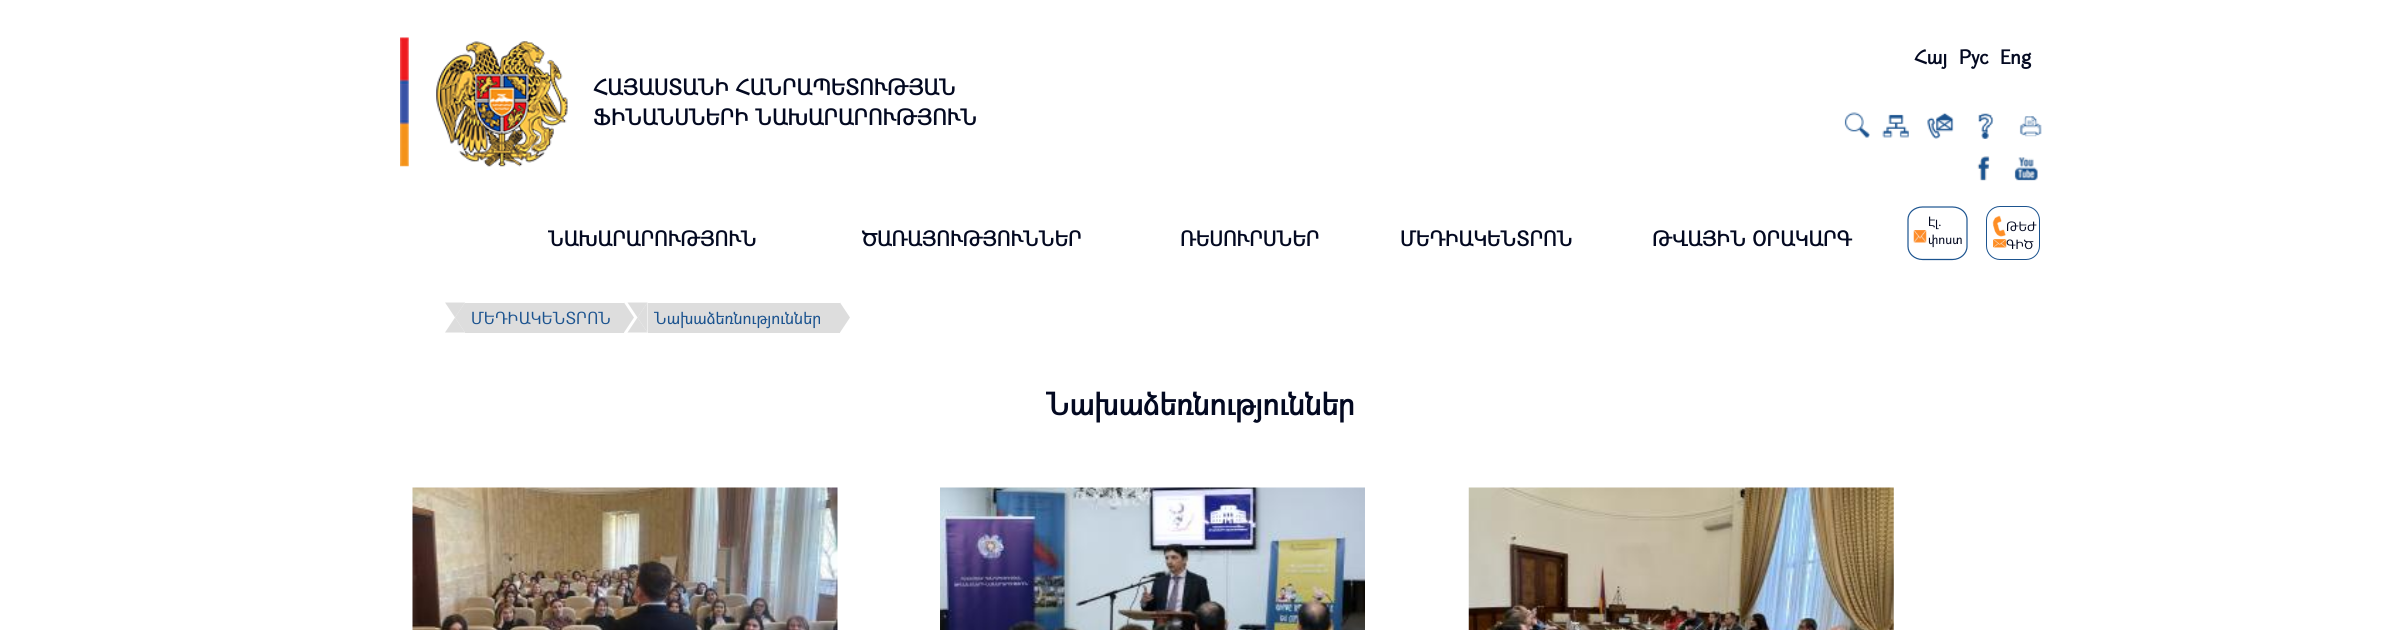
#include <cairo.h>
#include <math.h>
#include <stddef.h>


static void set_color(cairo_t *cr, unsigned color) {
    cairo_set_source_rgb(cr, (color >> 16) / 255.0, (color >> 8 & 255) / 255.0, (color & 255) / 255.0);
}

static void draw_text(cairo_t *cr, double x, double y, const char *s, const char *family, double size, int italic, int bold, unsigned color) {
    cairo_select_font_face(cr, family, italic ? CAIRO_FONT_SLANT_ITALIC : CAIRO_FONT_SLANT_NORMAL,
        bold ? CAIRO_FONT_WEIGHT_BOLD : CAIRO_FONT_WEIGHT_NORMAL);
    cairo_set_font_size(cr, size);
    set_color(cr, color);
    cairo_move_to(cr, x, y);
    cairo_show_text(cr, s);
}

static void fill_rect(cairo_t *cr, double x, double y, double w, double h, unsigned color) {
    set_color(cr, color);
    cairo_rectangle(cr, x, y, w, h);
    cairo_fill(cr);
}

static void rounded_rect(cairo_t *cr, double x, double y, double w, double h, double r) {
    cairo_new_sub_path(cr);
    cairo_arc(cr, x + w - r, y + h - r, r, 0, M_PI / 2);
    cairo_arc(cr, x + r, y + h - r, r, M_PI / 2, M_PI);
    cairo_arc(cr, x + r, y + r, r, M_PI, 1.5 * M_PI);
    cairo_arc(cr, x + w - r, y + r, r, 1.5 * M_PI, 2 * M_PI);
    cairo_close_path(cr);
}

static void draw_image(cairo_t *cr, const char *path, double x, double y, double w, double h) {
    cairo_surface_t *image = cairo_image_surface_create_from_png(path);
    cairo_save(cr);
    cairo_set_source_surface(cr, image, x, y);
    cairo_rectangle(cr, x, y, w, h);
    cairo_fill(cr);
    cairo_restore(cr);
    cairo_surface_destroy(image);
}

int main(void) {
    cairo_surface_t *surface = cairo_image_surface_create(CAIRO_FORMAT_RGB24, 2399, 630);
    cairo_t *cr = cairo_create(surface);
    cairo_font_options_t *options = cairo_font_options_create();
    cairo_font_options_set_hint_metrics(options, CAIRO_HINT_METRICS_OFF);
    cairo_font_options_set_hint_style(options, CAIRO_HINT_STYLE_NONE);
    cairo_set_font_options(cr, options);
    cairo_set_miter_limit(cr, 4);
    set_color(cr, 0xFFFFFF);
    cairo_paint(cr);
    draw_text(cr, 1914, 64, "Հայ", "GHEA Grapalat", 19, 0, 1, 0x030921);
    draw_text(cr, 1959, 64, "Рус", "GHEA Grapalat", 19, 0, 1, 0x030921);
    draw_text(cr, 2000, 64, "Eng", "GHEA Grapalat", 19, 0, 1, 0x030921);
    draw_image(cr, "assets/img1.png", 1844, 112, 26, 26);
    draw_image(cr, "assets/img2.png", 1882, 114, 27, 24);
    draw_image(cr, "assets/img3.png", 1927, 112, 27, 27);
    draw_image(cr, "assets/img4.png", 1978, 113, 16, 26);
    draw_image(cr, "assets/img5.png", 2019, 116, 23, 21);
    draw_image(cr, "assets/img6.png", 1977, 156, 13, 25);
    draw_image(cr, "assets/img7.png", 2014, 157, 24, 24);
    draw_image(cr, "assets/img8.png", 400, 37, 168, 130);
    draw_text(cr, 593, 95, "ՀԱՅԱՍՏԱՆԻ ՀԱՆՐԱՊԵՏՈՒԹՅԱՆ", "GHEA Grapalat", 21.25, 0, 1, 0x030921);
    draw_text(cr, 593, 125, "ՖԻՆԱՆՍՆԵՐԻ ՆԱԽԱՐԱՐՈՒԹՅՈՒՆ", "GHEA Grapalat", 21.25, 0, 1, 0x030921);
    draw_text(cr, 548, 246, "ՆԱԽԱՐԱՐՈՒԹՅՈՒՆ", "GHEA Grapalat", 20, 0, 1, 0x030921);
    draw_text(cr, 862, 246, "ԾԱՌԱՅՈՒԹՅՈՒՆՆԵՐ", "GHEA Grapalat", 20, 0, 1, 0x030921);
    draw_text(cr, 1180, 246, "ՌԵՍՈՒՐՍՆԵՐ", "GHEA Grapalat", 20, 0, 1, 0x030921);
    draw_text(cr, 1400, 246, "ՄԵԴԻԱԿԵՆՏՐՈՆ", "GHEA Grapalat", 20, 0, 1, 0x030921);
    draw_text(cr, 1652, 246, "ԹՎԱՅԻՆ ՕՐԱԿԱՐԳ", "GHEA Grapalat", 20, 0, 1, 0x030921);
    cairo_new_path(cr);
    cairo_move_to(cr, 1922.5, 207);
    cairo_line_to(cr, 1952.5, 207);
    cairo_curve_to(cr, 1960.5, 207, 1967, 212.5, 1967, 219.5);
    cairo_line_to(cr, 1967, 246.5);
    cairo_curve_to(cr, 1967, 253.5, 1960.5, 259.5, 1952.5, 259.5);
    cairo_line_to(cr, 1922.5, 259.5);
    cairo_curve_to(cr, 1914.5, 259.5, 1908, 253.5, 1908, 246.5);
    cairo_line_to(cr, 1908, 219.5);
    cairo_curve_to(cr, 1908, 212.5, 1914.5, 207, 1922.5, 207);
    cairo_close_path(cr);
    set_color(cr, 0x1B538F);
    cairo_set_line_width(cr, 1.2);
    cairo_stroke(cr);
    draw_image(cr, "assets/img9.png", 1913, 230, 14, 13);
    draw_text(cr, 1928, 226, "Էլ.", "GHEA Grapalat", 12.5, 0, 0, 0x030921);
    draw_text(cr, 1928, 244, "փոստ", "GHEA Grapalat", 12.5, 0, 0, 0x030921);
    rounded_rect(cr, 1986.5, 206.5, 53, 53, 13.5);
    set_color(cr, 0x1B538F);
    cairo_set_line_width(cr, 1);
    cairo_stroke(cr);
    draw_image(cr, "assets/img10.png", 1992, 215, 15, 33);
    draw_text(cr, 2006, 231, "ԹԵԺ", "GHEA Grapalat", 12.5, 0, 0, 0x030921);
    draw_text(cr, 2006, 249, "ԳԻԾ", "GHEA Grapalat", 12.5, 0, 0, 0x030921);
    fill_rect(cr, 465, 303, 159, 30, 0xDDDDDD);
    cairo_new_path(cr);
    cairo_move_to(cr, 445, 302.5);
    cairo_line_to(cr, 465, 302.5);
    cairo_line_to(cr, 455, 317.5);
    cairo_close_path(cr);
    cairo_fill(cr);
    cairo_set_source_rgba(cr, 0.831, 0.831, 0.831, 0.8);
    cairo_new_path(cr);
    cairo_move_to(cr, 465, 302.5);
    cairo_line_to(cr, 465, 332.5);
    cairo_line_to(cr, 455, 317.5);
    cairo_close_path(cr);
    cairo_fill(cr);
    cairo_new_path(cr);
    cairo_move_to(cr, 465, 332.5);
    cairo_line_to(cr, 445, 332.5);
    cairo_line_to(cr, 455, 317.5);
    cairo_close_path(cr);
    cairo_fill(cr);
    draw_text(cr, 471, 324, "ՄԵԴԻԱԿԵՆՏՐՈՆ", "GHEA Grapalat", 16.25, 0, 0, 0x1B538F);
    set_color(cr, 0xDDDDDD);
    cairo_new_path(cr);
    cairo_move_to(cr, 624, 332.5);
    cairo_line_to(cr, 624, 302.5);
    cairo_line_to(cr, 634, 317.5);
    cairo_close_path(cr);
    cairo_fill(cr);
    fill_rect(cr, 648, 303, 192, 30, 0xDDDDDD);
    cairo_new_path(cr);
    cairo_move_to(cr, 627.5, 302.5);
    cairo_line_to(cr, 647.5, 302.5);
    cairo_line_to(cr, 637.5, 317.5);
    cairo_close_path(cr);
    cairo_fill(cr);
    cairo_set_source_rgba(cr, 0.831, 0.831, 0.831, 0.8);
    cairo_new_path(cr);
    cairo_move_to(cr, 647.5, 302.5);
    cairo_line_to(cr, 647.5, 332.5);
    cairo_line_to(cr, 637.5, 317.5);
    cairo_close_path(cr);
    cairo_fill(cr);
    cairo_new_path(cr);
    cairo_move_to(cr, 647.5, 332.5);
    cairo_line_to(cr, 627.5, 332.5);
    cairo_line_to(cr, 637.5, 317.5);
    cairo_close_path(cr);
    cairo_fill(cr);
    draw_text(cr, 654, 324, "Նախաձեռնություններ", "GHEA Grapalat", 16.25, 0, 0, 0x1B538F);
    set_color(cr, 0xDDDDDD);
    cairo_new_path(cr);
    cairo_move_to(cr, 840, 332.5);
    cairo_line_to(cr, 840, 302.5);
    cairo_line_to(cr, 850, 317.5);
    cairo_close_path(cr);
    cairo_fill(cr);
    draw_text(cr, 1046, 415, "Նախաձեռնություններ", "GHEA Grapalat", 30, 0, 1, 0x030921);
    draw_image(cr, "assets/img11.png", 412, 487, 426, 143);
    draw_image(cr, "assets/img12.png", 940, 487, 425, 143);
    draw_image(cr, "assets/img13.png", 1468, 487, 426, 143);
    cairo_surface_write_to_png(surface, "output.png");
    cairo_font_options_destroy(options);
    cairo_destroy(cr);
    cairo_surface_destroy(surface);
    return 0;
}
